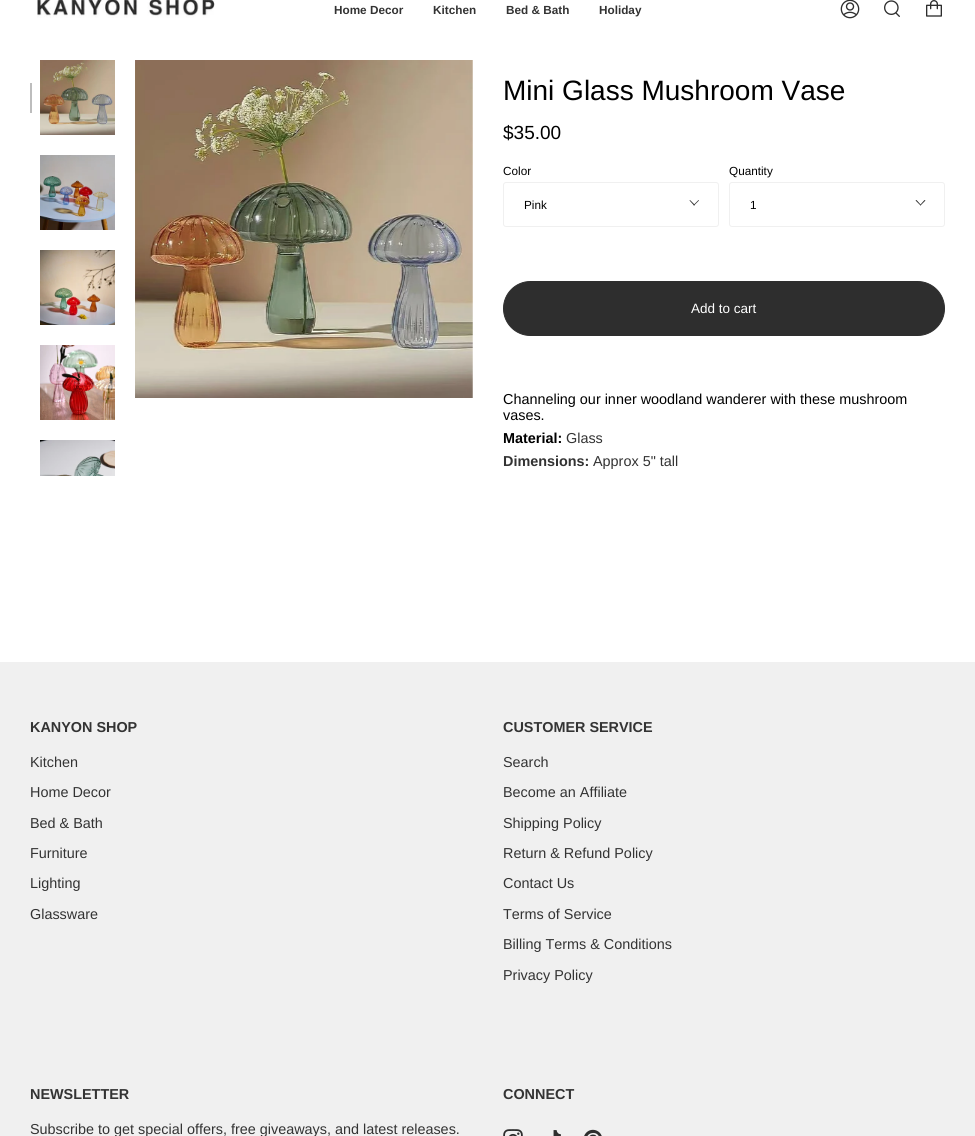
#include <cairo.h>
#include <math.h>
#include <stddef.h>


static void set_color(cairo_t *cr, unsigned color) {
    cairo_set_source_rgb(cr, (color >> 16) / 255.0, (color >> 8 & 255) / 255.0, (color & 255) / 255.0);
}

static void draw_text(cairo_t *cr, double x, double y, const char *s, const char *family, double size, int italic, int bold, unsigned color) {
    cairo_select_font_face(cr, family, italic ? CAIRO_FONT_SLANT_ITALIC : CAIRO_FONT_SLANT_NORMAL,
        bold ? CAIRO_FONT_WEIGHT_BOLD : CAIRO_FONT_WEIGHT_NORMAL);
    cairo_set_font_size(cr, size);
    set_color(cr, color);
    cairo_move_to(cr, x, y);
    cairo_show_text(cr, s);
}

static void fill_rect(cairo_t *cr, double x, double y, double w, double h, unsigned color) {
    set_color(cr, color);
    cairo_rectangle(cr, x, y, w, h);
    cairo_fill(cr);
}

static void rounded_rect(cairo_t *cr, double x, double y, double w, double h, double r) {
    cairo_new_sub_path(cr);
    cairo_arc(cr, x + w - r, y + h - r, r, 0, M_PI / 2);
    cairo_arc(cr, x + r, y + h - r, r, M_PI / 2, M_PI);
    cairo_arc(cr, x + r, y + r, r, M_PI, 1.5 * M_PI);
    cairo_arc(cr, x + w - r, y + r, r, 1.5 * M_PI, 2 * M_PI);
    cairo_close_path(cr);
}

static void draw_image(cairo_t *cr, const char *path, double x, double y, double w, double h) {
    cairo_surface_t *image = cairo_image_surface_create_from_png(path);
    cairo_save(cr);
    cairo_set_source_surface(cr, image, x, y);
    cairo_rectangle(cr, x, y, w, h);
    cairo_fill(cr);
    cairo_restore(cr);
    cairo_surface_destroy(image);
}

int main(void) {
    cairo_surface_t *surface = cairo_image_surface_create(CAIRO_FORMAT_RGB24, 975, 1136);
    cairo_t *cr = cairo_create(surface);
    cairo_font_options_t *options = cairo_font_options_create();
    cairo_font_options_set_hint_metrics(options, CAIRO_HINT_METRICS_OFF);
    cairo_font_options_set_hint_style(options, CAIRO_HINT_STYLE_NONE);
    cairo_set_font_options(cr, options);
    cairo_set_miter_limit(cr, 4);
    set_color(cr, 0xFFFFFF);
    cairo_paint(cr);
    draw_image(cr, "assets/img1.png", 37, 0, 178, 18);
    draw_text(cr, 334, 14, "Home Decor", "Liberation Sans", 11.75, 0, 1, 0x333333);
    draw_text(cr, 433, 14, "Kitchen", "Liberation Sans", 11.75, 0, 1, 0x333333);
    draw_text(cr, 506, 14, "Bed & Bath", "Liberation Sans", 11.75, 0, 1, 0x333333);
    draw_text(cr, 599, 14, "Holiday", "Liberation Sans", 11.75, 0, 1, 0x333333);
    draw_image(cr, "assets/img2.png", 840, 0, 20, 19);
    draw_image(cr, "assets/img3.png", 884, 0, 16, 17);
    draw_image(cr, "assets/img4.png", 926, 0, 16, 17);
    fill_rect(cr, 30, 83, 2, 30, 0xBDBDBD);
    draw_image(cr, "assets/img5.png", 40, 60, 75, 75);
    draw_image(cr, "assets/img6.png", 40, 155, 75, 75);
    draw_image(cr, "assets/img7.png", 40, 250, 75, 75);
    draw_image(cr, "assets/img8.png", 40, 345, 75, 75);
    draw_image(cr, "assets/img9.png", 40, 440, 75, 36);
    draw_image(cr, "assets/img10.png", 135, 60, 338, 338);
    draw_text(cr, 503, 100, "Mini Glass Mushroom Vase", "Liberation Sans", 28, 0, 0, 0x000000);
    draw_text(cr, 503, 139, "$35.00", "Liberation Sans", 19, 0, 0, 0x000000);
    draw_text(cr, 503, 175, "Color", "Liberation Sans", 11.75, 0, 0, 0x000000);
    rounded_rect(cr, 503.5, 182.5, 215, 44, 2.5);
    set_color(cr, 0xF0F0F0);
    cairo_set_line_width(cr, 1);
    cairo_stroke(cr);
    draw_text(cr, 524, 209, "Pink", "Liberation Sans", 11.75, 0, 0, 0x000000);
    set_color(cr, 0x2E2E2E);
    cairo_new_path(cr);
    cairo_move_to(cr, 693.5, 205);
    cairo_line_to(cr, 698.5, 200);
    cairo_line_to(cr, 699, 200.5);
    cairo_line_to(cr, 694, 205.5);
    cairo_close_path(cr);
    cairo_fill(cr);
    cairo_new_path(cr);
    cairo_move_to(cr, 689.5, 200.5);
    cairo_line_to(cr, 690, 200);
    cairo_line_to(cr, 695, 205);
    cairo_line_to(cr, 694, 205.5);
    cairo_close_path(cr);
    cairo_fill(cr);
    draw_text(cr, 729, 175, "Quantity", "Liberation Sans", 11.75, 0, 0, 0x000000);
    rounded_rect(cr, 729.5, 182.5, 215, 44, 2.5);
    set_color(cr, 0xF0F0F0);
    cairo_stroke(cr);
    draw_text(cr, 750, 209, "1", "Liberation Sans", 11.75, 0, 0, 0x000000);
    set_color(cr, 0x2E2E2E);
    cairo_new_path(cr);
    cairo_move_to(cr, 920, 205);
    cairo_line_to(cr, 924.5, 200);
    cairo_line_to(cr, 925.5, 200.5);
    cairo_line_to(cr, 920.5, 205.5);
    cairo_close_path(cr);
    cairo_fill(cr);
    cairo_new_path(cr);
    cairo_move_to(cr, 915.5, 200.5);
    cairo_line_to(cr, 916.5, 200);
    cairo_line_to(cr, 921, 205);
    cairo_line_to(cr, 920.5, 205.5);
    cairo_close_path(cr);
    cairo_fill(cr);
    rounded_rect(cr, 503.5, 281.5, 441, 54, 27);
    cairo_fill_preserve(cr);
    cairo_stroke(cr);
    draw_text(cr, 691, 313, "Add to cart", "Liberation Sans", 13.5, 0, 0, 0xFFFFFF);
    draw_text(cr, 503, 404, "Channeling our inner woodland wanderer with these mushroom", "Liberation Sans", 14.4, 0, 0, 0x000000);
    draw_text(cr, 503, 420, "vases.", "Liberation Sans", 14.4, 0, 0, 0x000000);
    draw_text(cr, 503, 443, "Material:", "Liberation Sans", 14.4, 0, 1, 0x000000);
    draw_text(cr, 566, 443, "Glass", "Liberation Sans", 14.4, 0, 0, 0x333333);
    draw_text(cr, 503, 466, "Dimensions:", "Liberation Sans", 14.4, 0, 1, 0x333333);
    draw_text(cr, 593, 466, "Approx 5\" tall", "Liberation Sans", 14.4, 0, 0, 0x333333);
    fill_rect(cr, 0, 662, 975, 474, 0xF0F0F0);
    draw_text(cr, 30, 732, "KANYON SHOP", "Liberation Sans", 14.4, 0, 1, 0x333333);
    draw_text(cr, 30, 767, "Kitchen", "Liberation Sans", 14.4, 0, 0, 0x333333);
    draw_text(cr, 30, 797, "Home Decor", "Liberation Sans", 14.4, 0, 0, 0x333333);
    draw_text(cr, 30, 828, "Bed & Bath", "Liberation Sans", 14.4, 0, 0, 0x333333);
    draw_text(cr, 30, 858, "Furniture", "Liberation Sans", 14.4, 0, 0, 0x333333);
    draw_text(cr, 30, 888, "Lighting", "Liberation Sans", 14.4, 0, 0, 0x333333);
    draw_text(cr, 30, 919, "Glassware", "Liberation Sans", 14.4, 0, 0, 0x333333);
    draw_text(cr, 503, 732, "CUSTOMER SERVICE", "Liberation Sans", 14.4, 0, 1, 0x333333);
    draw_text(cr, 503, 767, "Search", "Liberation Sans", 14.4, 0, 0, 0x333333);
    draw_text(cr, 503, 797, "Become an Affiliate", "Liberation Sans", 14.4, 0, 0, 0x333333);
    draw_text(cr, 503, 828, "Shipping Policy", "Liberation Sans", 14.4, 0, 0, 0x333333);
    draw_text(cr, 503, 858, "Return & Refund Policy", "Liberation Sans", 14.4, 0, 0, 0x333333);
    draw_text(cr, 503, 888, "Contact Us", "Liberation Sans", 14.4, 0, 0, 0x333333);
    draw_text(cr, 503, 919, "Terms of Service", "Liberation Sans", 14.4, 0, 0, 0x333333);
    draw_text(cr, 503, 949, "Billing Terms & Conditions", "Liberation Sans", 14.4, 0, 0, 0x333333);
    draw_text(cr, 503, 980, "Privacy Policy", "Liberation Sans", 14.4, 0, 0, 0x333333);
    draw_text(cr, 30, 1099, "NEWSLETTER", "Liberation Sans", 14.4, 0, 1, 0x333333);
    draw_text(cr, 30, 1134, "Subscribe to get special offers, free giveaways, and latest releases.", "Liberation Sans", 14.4, 0, 0, 0x333333);
    draw_text(cr, 503, 1099, "CONNECT", "Liberation Sans", 14.4, 0, 1, 0x333333);
    draw_image(cr, "assets/img11.png", 503, 1129, 20, 7);
    draw_image(cr, "assets/img12.png", 553, 1130, 8, 6);
    draw_image(cr, "assets/img13.png", 584, 1129, 18, 7);
    cairo_surface_write_to_png(surface, "output.png");
    cairo_font_options_destroy(options);
    cairo_destroy(cr);
    cairo_surface_destroy(surface);
    return 0;
}
